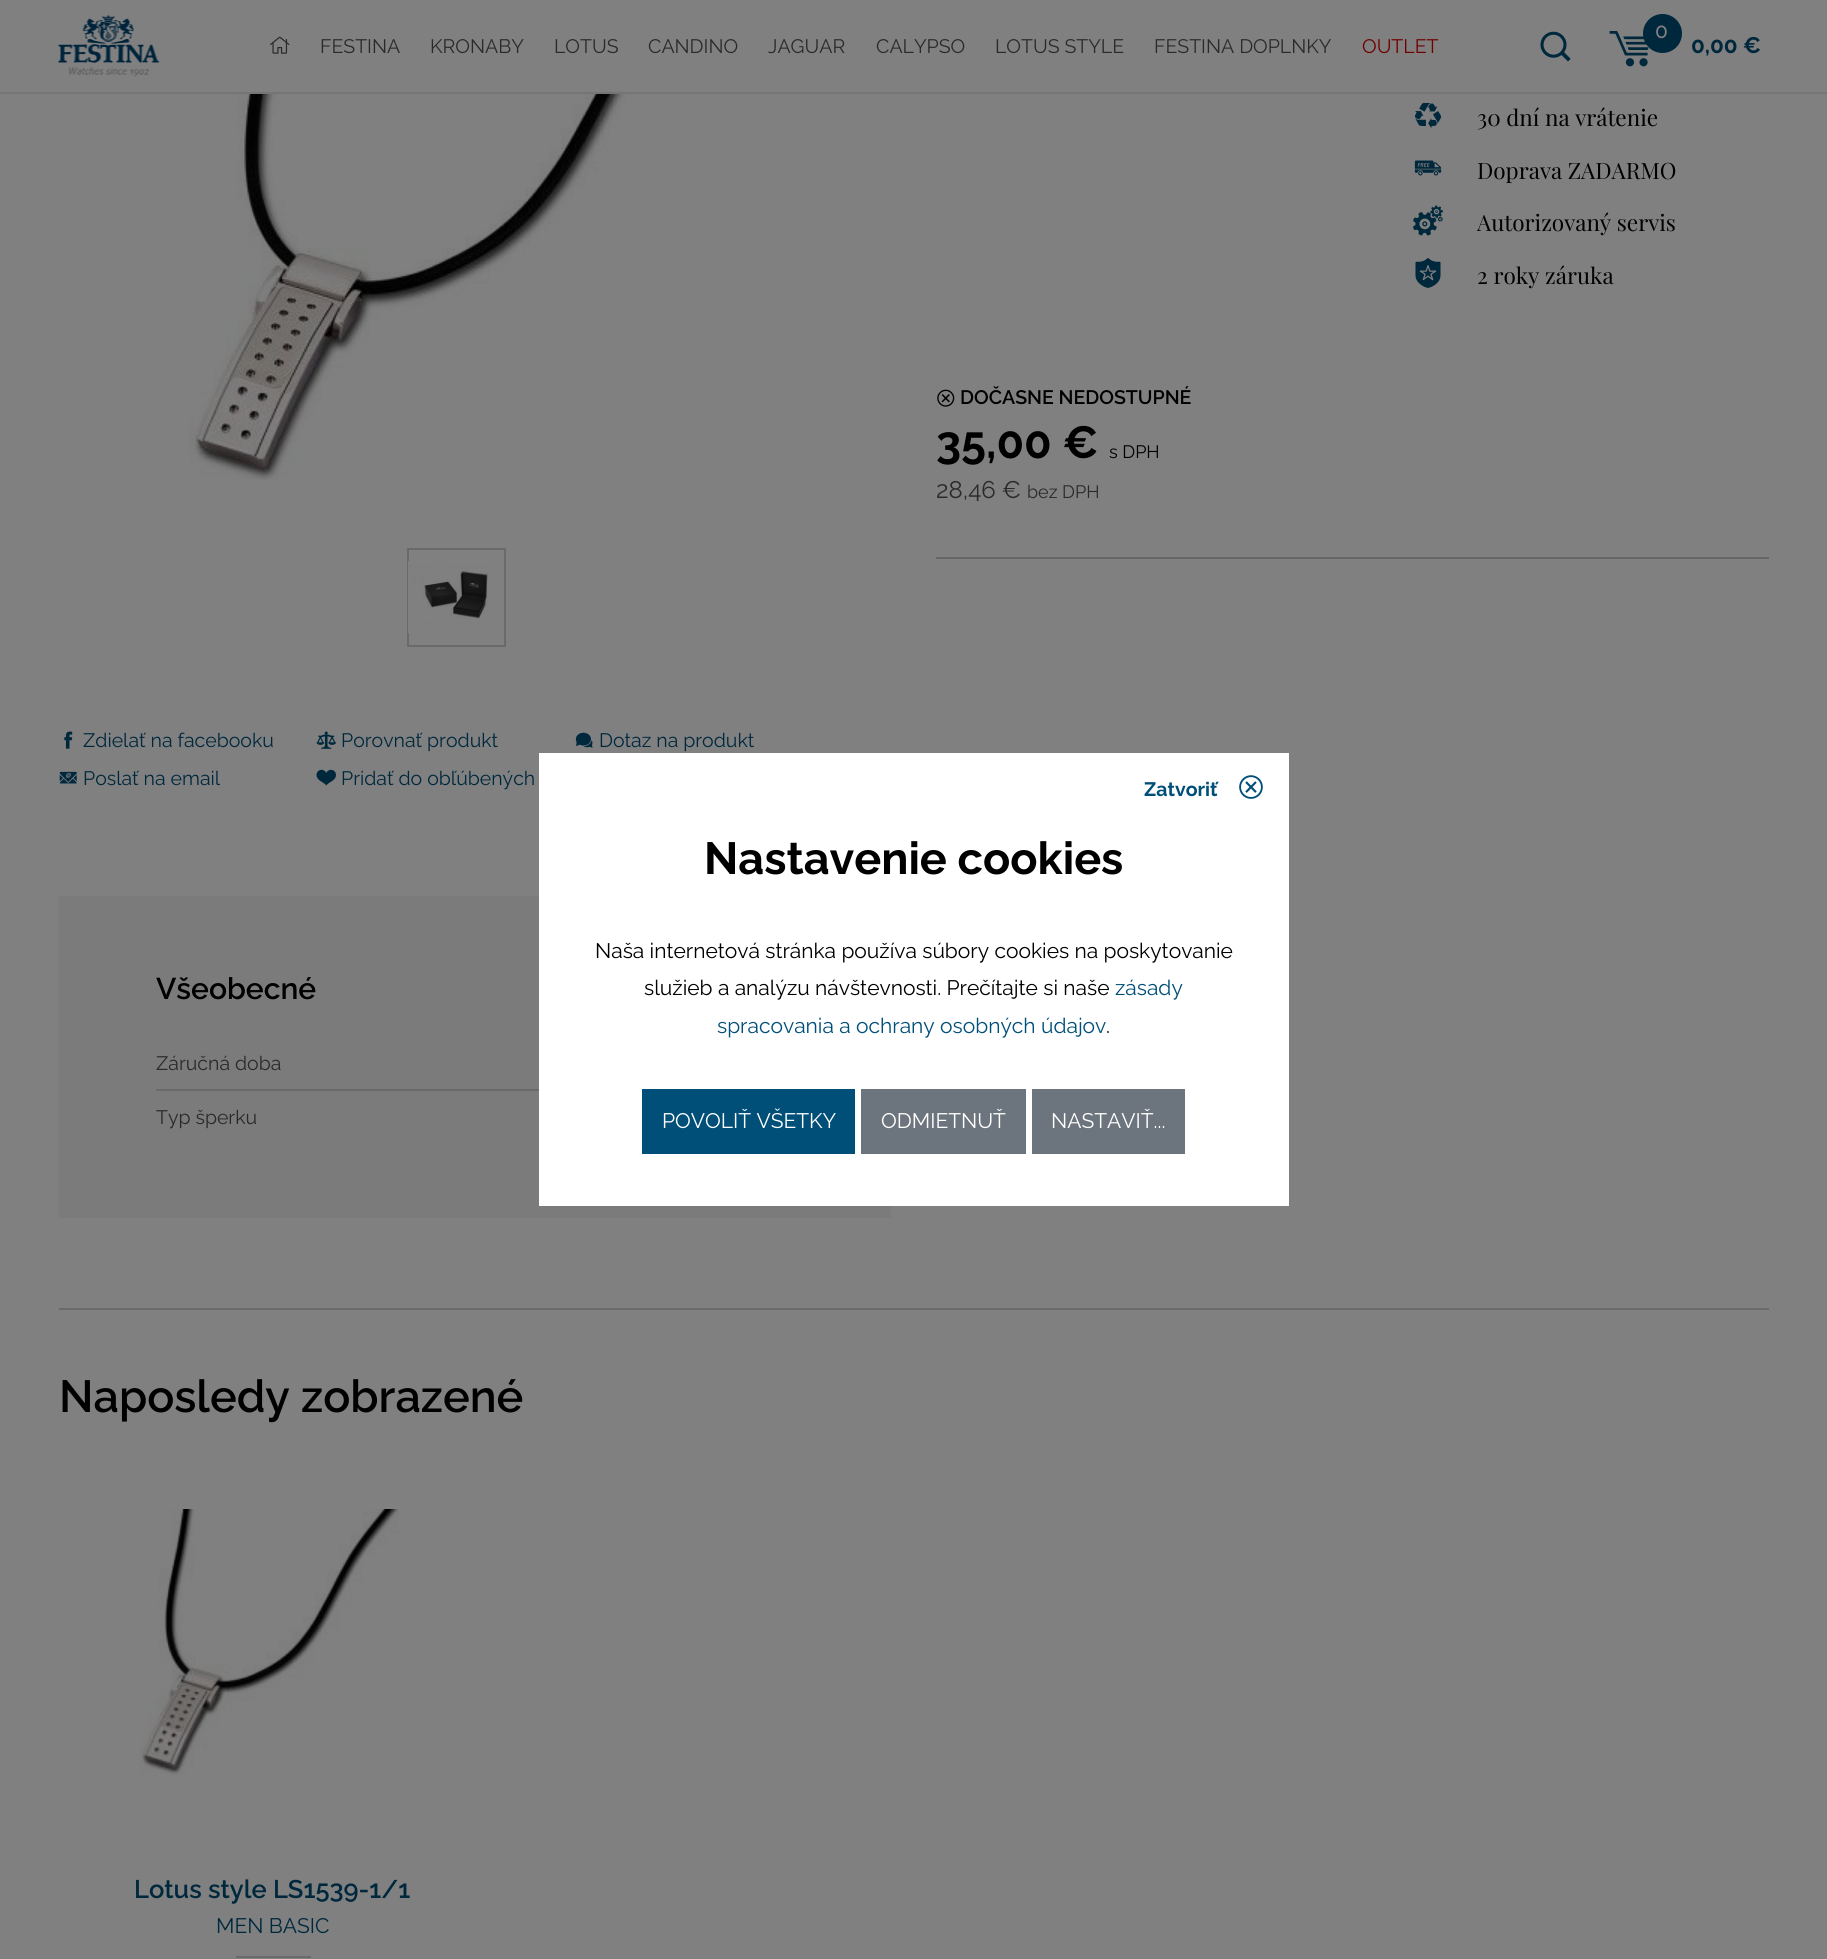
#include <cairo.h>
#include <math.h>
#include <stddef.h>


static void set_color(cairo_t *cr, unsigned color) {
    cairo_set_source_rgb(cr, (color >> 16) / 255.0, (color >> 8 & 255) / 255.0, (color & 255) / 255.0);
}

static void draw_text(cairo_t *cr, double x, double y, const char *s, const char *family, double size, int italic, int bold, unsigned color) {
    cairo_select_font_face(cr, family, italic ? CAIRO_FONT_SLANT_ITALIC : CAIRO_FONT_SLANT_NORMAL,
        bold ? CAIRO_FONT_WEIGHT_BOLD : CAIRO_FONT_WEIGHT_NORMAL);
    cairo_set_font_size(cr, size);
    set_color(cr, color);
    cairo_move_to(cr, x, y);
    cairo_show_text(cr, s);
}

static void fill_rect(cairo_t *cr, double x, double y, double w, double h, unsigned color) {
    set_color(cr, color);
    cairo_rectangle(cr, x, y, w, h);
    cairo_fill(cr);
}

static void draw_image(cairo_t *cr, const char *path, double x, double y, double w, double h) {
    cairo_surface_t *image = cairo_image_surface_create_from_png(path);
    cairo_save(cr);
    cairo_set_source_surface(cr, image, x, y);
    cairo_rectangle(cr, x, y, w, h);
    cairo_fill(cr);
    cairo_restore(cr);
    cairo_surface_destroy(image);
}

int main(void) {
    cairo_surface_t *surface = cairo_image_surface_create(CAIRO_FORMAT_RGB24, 1827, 1959);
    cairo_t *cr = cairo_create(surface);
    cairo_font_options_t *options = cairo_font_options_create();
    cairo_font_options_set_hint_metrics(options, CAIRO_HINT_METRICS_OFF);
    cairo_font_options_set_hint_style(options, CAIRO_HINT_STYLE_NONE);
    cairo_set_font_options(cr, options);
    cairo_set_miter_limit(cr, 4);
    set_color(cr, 0x808080);
    cairo_paint(cr);
    fill_rect(cr, 0, 92, 1827, 2, 0x757575);
    draw_image(cr, "assets/img1.png", 58, 15, 102, 62);
    draw_image(cr, "assets/img2.png", 270, 36, 20, 18);
    draw_text(cr, 320, 53, "FESTINA", "Raleway", 19.5, 0, 0, 0x2A2A2A);
    draw_text(cr, 430, 53, "KRONABY", "Raleway", 19.5, 0, 0, 0x2A2A2A);
    draw_text(cr, 554, 53, "LOTUS", "Raleway", 19.5, 0, 0, 0x2A2A2A);
    draw_text(cr, 648, 53, "CANDINO", "Raleway", 19.5, 0, 0, 0x2A2A2A);
    draw_text(cr, 768, 53, "JAGUAR", "Raleway", 19.5, 0, 0, 0x2A2A2A);
    draw_text(cr, 876, 53, "CALYPSO", "Raleway", 19.5, 0, 0, 0x2A2A2A);
    draw_text(cr, 995, 53, "LOTUS STYLE", "Raleway", 19.5, 0, 0, 0x2A2A2A);
    draw_text(cr, 1154, 53, "FESTINA DOPLNKY", "Raleway", 19.5, 0, 0, 0x2A2A2A);
    draw_text(cr, 1362, 53, "OUTLET", "Raleway", 19.5, 0, 0, 0x6F0000);
    draw_image(cr, "assets/img3.png", 1540, 31, 31, 31);
    draw_image(cr, "assets/img4.png", 1609, 31, 40, 36);
    set_color(cr, 0x00283D);
    cairo_arc(cr, 1662.5, 33.5, 19.5, 0, 2 * M_PI);
    cairo_fill(cr);
    draw_text(cr, 1655, 38, "0", "Raleway Medium", 21, 0, 0, 0x808080);
    draw_text(cr, 1691, 53, "0,00 €", "Raleway", 22.5, 0, 1, 0x00283D);
    draw_image(cr, "assets/img5.png", 189, 94, 491, 386);
    cairo_rectangle(cr, 408, 549, 97, 97);
    set_color(cr, 0x6A6A6A);
    cairo_stroke(cr);
    draw_image(cr, "assets/img6.png", 408, 561, 80, 72);
    draw_image(cr, "assets/img7.png", 1414, 102, 28, 26);
    draw_text(cr, 1477, 126, "30 dní na vrátenie", "Playfair Display", 22.5, 0, 0, 0x000000);
    draw_image(cr, "assets/img8.png", 1414, 160, 28, 16);
    draw_text(cr, 1477, 179, "Doprava ZADARMO", "Playfair Display", 22.5, 0, 0, 0x000000);
    draw_image(cr, "assets/img9.png", 1413, 205, 30, 31);
    draw_text(cr, 1477, 231, "Autorizovaný servis", "Playfair Display", 22.5, 0, 0, 0x000000);
    draw_image(cr, "assets/img10.png", 1415, 258, 26, 30);
    draw_text(cr, 1477, 284, "2 roky záruka", "Playfair Display", 22.5, 0, 0, 0x000000);
    fill_rect(cr, 936, 557, 833, 2, 0x666666);
    draw_image(cr, "assets/img11.png", 937, 389, 18, 18);
    draw_text(cr, 960, 404, "DOČASNE NEDOSTUPNÉ", "Raleway SemiBold", 19.5, 0, 0, 0x000000);
    draw_text(cr, 936, 458, "35,00 €", "Raleway", 45, 0, 1, 0x000000);
    draw_text(cr, 1109, 458, "s DPH", "Raleway", 18, 0, 0, 0x000000);
    draw_text(cr, 936, 498, "28,46 €", "Raleway", 24, 0, 0, 0x2A2A2A);
    draw_text(cr, 1027, 498, "bez DPH", "Raleway", 18, 0, 0, 0x2A2A2A);
    draw_image(cr, "assets/img12.png", 64, 731, 9, 18);
    draw_text(cr, 83, 747, "Zdielať na facebooku", "Raleway", 19.5, 0, 0, 0x00283D);
    draw_image(cr, "assets/img13.png", 316, 731, 20, 18);
    draw_text(cr, 341, 747, "Porovnať produkt", "Raleway", 19.5, 0, 0, 0x00283D);
    draw_image(cr, "assets/img14.png", 575, 732, 18, 16);
    draw_text(cr, 599, 747, "Dotaz na produkt", "Raleway", 19.5, 0, 0, 0x00283D);
    draw_image(cr, "assets/img15.png", 59, 771, 18, 13);
    draw_text(cr, 83, 785, "Poslať na email", "Raleway", 19.5, 0, 0, 0x00283D);
    draw_image(cr, "assets/img16.png", 316, 769, 20, 17);
    draw_text(cr, 341, 785, "Pridať do obľúbených", "Raleway", 19.5, 0, 0, 0x00283D);
    fill_rect(cr, 59, 896, 832, 322, 0x7B7B7B);
    draw_text(cr, 156, 999, "Všeobecné", "Raleway SemiBold", 30, 0, 0, 0x000000);
    fill_rect(cr, 156, 1089, 383, 2, 0x6A6A6A);
    draw_text(cr, 156, 1070, "Záručná doba", "Raleway", 19.5, 0, 0, 0x2A2A2A);
    draw_text(cr, 156, 1124, "Typ šperku", "Raleway", 19.5, 0, 0, 0x2A2A2A);
    fill_rect(cr, 59, 1308, 1710, 2, 0x6B6B6B);
    draw_text(cr, 59, 1412, "Naposledy zobrazené", "Raleway SemiBold", 45, 0, 0, 0x000000);
    draw_image(cr, "assets/img17.png", 140, 1509, 259, 266);
    draw_text(cr, 134, 1898, "Lotus style LS1539-1/1", "Raleway SemiBold", 25.5, 0, 0, 0x00283D);
    draw_text(cr, 216, 1933, "MEN BASIC", "Raleway", 21, 0, 0, 0x00283D);
    fill_rect(cr, 236, 1956, 75, 2, 0x6B6B6B);
    fill_rect(cr, 539, 753, 750, 453, 0xFFFFFF);
    draw_text(cr, 1144, 796, "Zatvoriť", "Raleway", 19.5, 0, 1, 0x004F78);
    draw_image(cr, "assets/img18.png", 1239, 775, 24, 24);
    draw_text(cr, 704, 874, "Nastavenie cookies", "Raleway", 45, 0, 1, 0x000000);
    draw_text(cr, 595, 958, "Naša internetová stránka používa súbory cookies na poskytovanie", "Raleway", 21, 0, 0, 0x000000);
    draw_text(cr, 644, 995, "služieb a analýzu návštevnosti. Prečítajte si naše", "Raleway", 21, 0, 0, 0x000000);
    draw_text(cr, 1115, 995, "zásady", "Raleway", 21, 0, 0, 0x004F78);
    draw_text(cr, 717, 1033, "spracovania a ochrany osobných údajov", "Raleway", 21, 0, 0, 0x004F78);
    draw_text(cr, 1106, 1033, ".", "Raleway", 21, 0, 0, 0x000000);
    fill_rect(cr, 642, 1089, 213, 65, 0x004F78);
    draw_text(cr, 662, 1128, "POVOLIŤ VŠETKY", "Raleway", 21, 0, 0, 0xFFFFFF);
    fill_rect(cr, 861, 1089, 165, 65, 0x6C757D);
    draw_text(cr, 881, 1128, "ODMIETNUŤ", "Raleway", 21, 0, 0, 0xFFFFFF);
    fill_rect(cr, 1032, 1089, 153, 65, 0x6C757D);
    draw_text(cr, 1051, 1128, "NASTAVIŤ...", "Raleway", 21, 0, 0, 0xFFFFFF);
    cairo_surface_write_to_png(surface, "output.png");
    cairo_font_options_destroy(options);
    cairo_destroy(cr);
    cairo_surface_destroy(surface);
    return 0;
}
